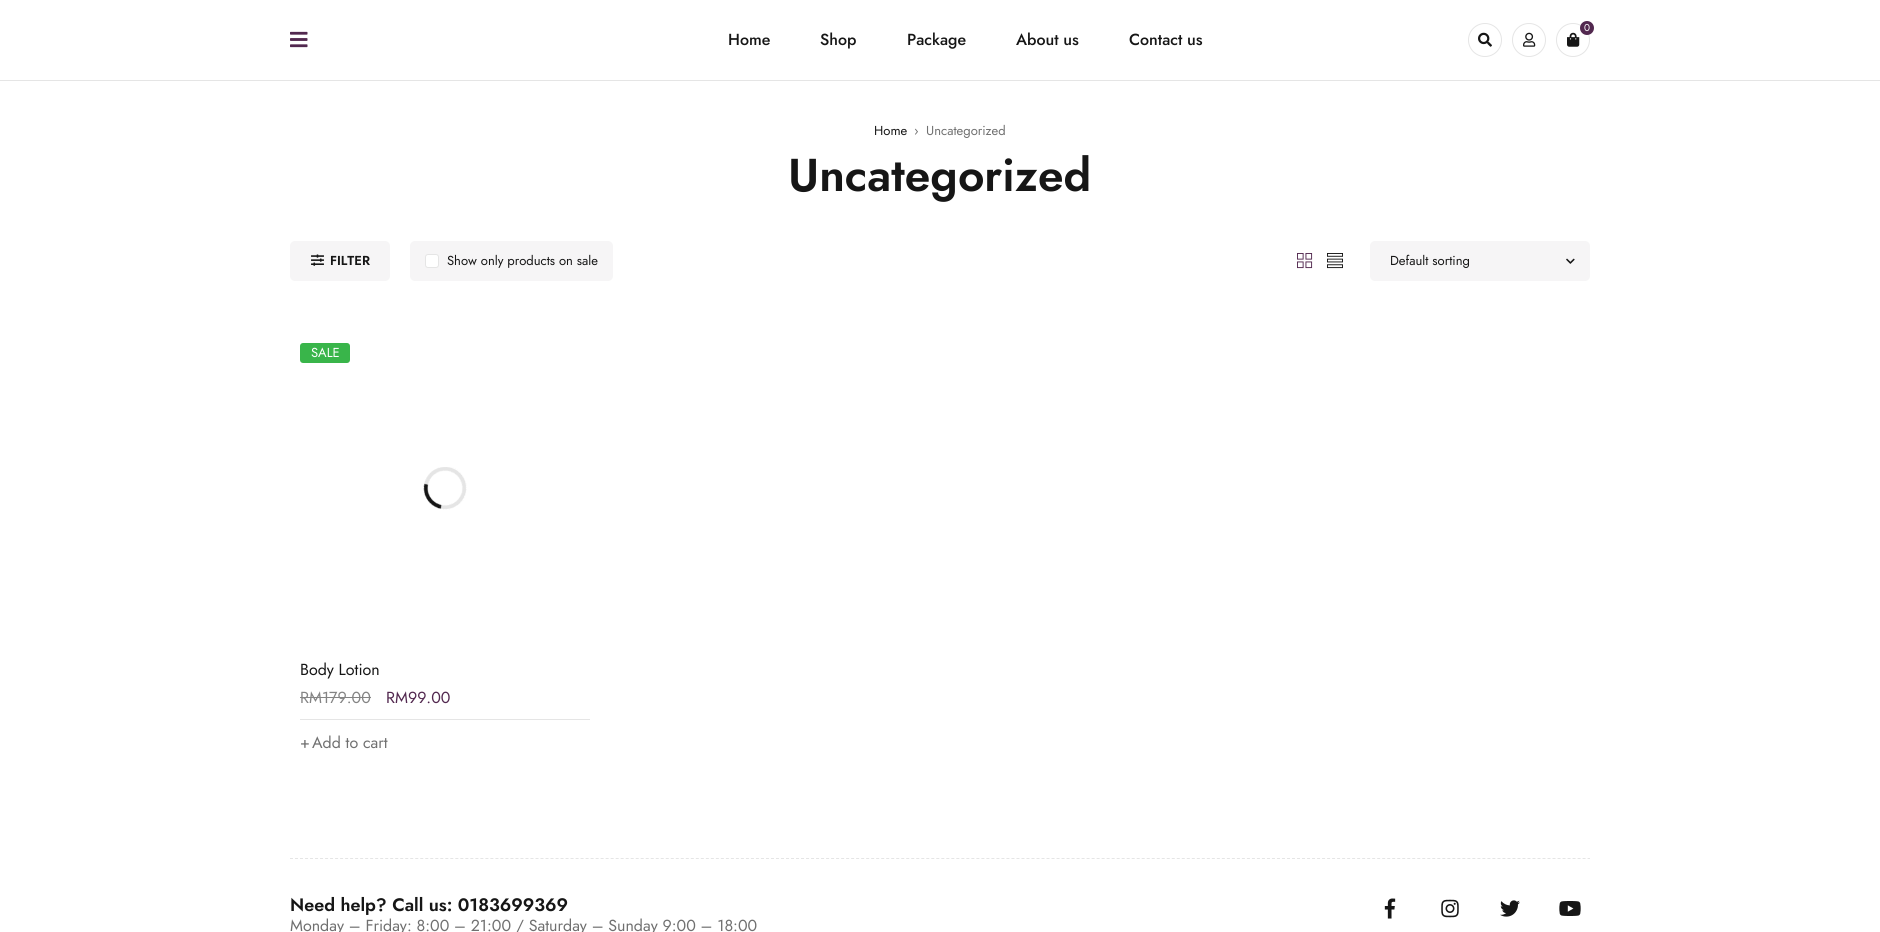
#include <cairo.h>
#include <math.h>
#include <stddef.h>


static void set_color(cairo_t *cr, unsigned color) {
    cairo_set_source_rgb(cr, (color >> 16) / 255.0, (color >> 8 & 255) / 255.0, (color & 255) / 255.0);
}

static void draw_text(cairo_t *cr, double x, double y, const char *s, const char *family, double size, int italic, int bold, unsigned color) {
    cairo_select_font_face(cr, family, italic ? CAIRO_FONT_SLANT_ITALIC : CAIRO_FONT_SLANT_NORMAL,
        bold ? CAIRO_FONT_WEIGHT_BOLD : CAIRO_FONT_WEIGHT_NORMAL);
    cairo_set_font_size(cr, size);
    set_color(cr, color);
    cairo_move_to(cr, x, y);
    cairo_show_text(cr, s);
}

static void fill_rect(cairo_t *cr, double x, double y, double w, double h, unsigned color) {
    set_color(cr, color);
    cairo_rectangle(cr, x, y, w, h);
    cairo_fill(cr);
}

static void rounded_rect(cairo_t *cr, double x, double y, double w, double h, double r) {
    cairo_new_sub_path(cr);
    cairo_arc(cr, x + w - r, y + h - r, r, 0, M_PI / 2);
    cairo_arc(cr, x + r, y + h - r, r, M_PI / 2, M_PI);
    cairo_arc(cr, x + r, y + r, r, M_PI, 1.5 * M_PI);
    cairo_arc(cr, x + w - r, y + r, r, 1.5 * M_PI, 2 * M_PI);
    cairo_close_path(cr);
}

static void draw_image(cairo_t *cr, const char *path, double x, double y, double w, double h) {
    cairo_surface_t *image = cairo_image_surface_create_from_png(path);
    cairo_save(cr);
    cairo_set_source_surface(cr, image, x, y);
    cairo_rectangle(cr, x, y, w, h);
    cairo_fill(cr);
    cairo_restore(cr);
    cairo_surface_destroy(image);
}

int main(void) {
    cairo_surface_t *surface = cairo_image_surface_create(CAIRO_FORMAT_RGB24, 1880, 932);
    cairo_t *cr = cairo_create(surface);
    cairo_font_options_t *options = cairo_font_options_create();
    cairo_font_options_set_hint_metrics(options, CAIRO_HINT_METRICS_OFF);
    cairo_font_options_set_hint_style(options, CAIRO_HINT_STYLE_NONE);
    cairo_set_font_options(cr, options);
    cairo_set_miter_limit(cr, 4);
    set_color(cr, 0xFFFFFF);
    cairo_paint(cr);
    cairo_arc(cr, 1485, 40, 16.5, 0, 2 * M_PI);
    set_color(cr, 0xE5E5E5);
    cairo_set_line_width(cr, 1);
    cairo_stroke(cr);
    draw_image(cr, "assets/img1.png", 1478, 32, 14, 15);
    cairo_arc(cr, 1529, 40, 16.5, 0, 2 * M_PI);
    cairo_stroke(cr);
    draw_image(cr, "assets/img2.png", 1523, 32, 13, 15);
    cairo_arc(cr, 1573, 40, 16.5, 0, 2 * M_PI);
    cairo_stroke(cr);
    set_color(cr, 0x52284F);
    cairo_arc(cr, 1587, 28, 7, 0, 2 * M_PI);
    cairo_fill(cr);
    draw_text(cr, 1584, 31, "0", "Jost", 10, 0, 0, 0xFFFFFF);
    draw_image(cr, "assets/img3.png", 1567, 32, 13, 15);
    draw_image(cr, "assets/img4.png", 290, 31, 18, 17);
    draw_text(cr, 728, 45, "Home", "Jost Medium", 16, 0, 0, 0x161616);
    draw_text(cr, 820, 45, "Shop", "Jost Medium", 16, 0, 0, 0x161616);
    draw_text(cr, 907, 45, "Package", "Jost Medium", 16, 0, 0, 0x161616);
    draw_text(cr, 1016, 45, "About us", "Jost Medium", 16, 0, 0, 0x161616);
    draw_text(cr, 1129, 45, "Contact us", "Jost Medium", 16, 0, 0, 0x161616);
    fill_rect(cr, 0, 80, 1880, 1, 0xE5E5E5);
    draw_text(cr, 874, 135, "Home", "Jost", 13, 0, 0, 0x161616);
    draw_text(cr, 914, 135, "›", "Jost", 13, 0, 0, 0x707070);
    draw_text(cr, 926, 135, "Uncategorized", "Jost", 13, 0, 0, 0x707070);
    draw_text(cr, 788, 191, "Uncategorized", "Jost SemiBold", 46, 0, 0, 0x161616);
    set_color(cr, 0xF6F5F6);
    rounded_rect(cr, 290, 241, 100, 40, 5);
    cairo_fill(cr);
    draw_image(cr, "assets/img5.png", 311, 254, 13, 12);
    draw_text(cr, 330, 265, "FILTER", "Jost SemiBold", 13, 0, 0, 0x161616);
    set_color(cr, 0xF6F5F6);
    rounded_rect(cr, 410, 241, 203, 40, 5);
    cairo_fill(cr);
    set_color(cr, 0xFFFFFF);
    rounded_rect(cr, 425.5, 254.5, 13, 13, 2.5);
    cairo_fill_preserve(cr);
    set_color(cr, 0xE5E5E5);
    cairo_stroke(cr);
    draw_text(cr, 447, 265, "Show only products on sale", "Jost", 13, 0, 0, 0x161616);
    draw_image(cr, "assets/img6.png", 1297, 253, 16, 16);
    draw_image(cr, "assets/img7.png", 1327, 253, 16, 16);
    set_color(cr, 0xF6F5F6);
    rounded_rect(cr, 1370, 241, 220, 40, 5);
    cairo_fill(cr);
    draw_text(cr, 1390, 265, "Default sorting", "Jost", 13, 0, 0, 0x161616);
    draw_image(cr, "assets/img8.png", 1566, 258, 9, 6);
    set_color(cr, 0x39B54A);
    rounded_rect(cr, 300, 343, 50, 20, 3);
    cairo_fill(cr);
    draw_text(cr, 311, 357, "SALE", "Jost", 13, 0, 0, 0xFFFFFF);
    draw_image(cr, "assets/img9.png", 423, 467, 44, 43);
    draw_text(cr, 300, 675, "Body Lotion", "Jost", 16, 0, 0, 0x161616);
    draw_text(cr, 300, 703, "RM179.00", "Jost", 16, 0, 0, 0x848484);
    fill_rect(cr, 300, 697, 71, 1, 0x848484);
    draw_text(cr, 386, 703, "RM99.00", "Jost", 16, 0, 0, 0x52284F);
    fill_rect(cr, 300, 719, 290, 1, 0xE5E5E5);
    draw_text(cr, 300, 748, "+", "Jost", 16, 0, 0, 0x707070);
    draw_text(cr, 312, 748, "Add to cart", "Jost", 16, 0, 0, 0x707070);
    cairo_new_path(cr);
    cairo_move_to(cr, 290, 858.5);
    cairo_line_to(cr, 1590, 858.5);
    set_color(cr, 0xE5E5E5);
    cairo_set_dash(cr, (double[]){3, 2.01}, 2, 0);
    cairo_stroke(cr);
    draw_text(cr, 290, 911, "Need help? Call us: 0183699369", "Jost SemiBold", 18, 0, 0, 0x161616);
    draw_text(cr, 290, 931, "Monday – Friday: 8:00 – 21:00 / Saturday – Sunday 9:00 – 18:00", "Jost", 16, 0, 0, 0x707070);
    draw_image(cr, "assets/img10.png", 1384, 898, 12, 21);
    draw_image(cr, "assets/img11.png", 1441, 899, 18, 19);
    draw_image(cr, "assets/img12.png", 1500, 900, 20, 17);
    draw_image(cr, "assets/img13.png", 1559, 901, 22, 15);
    cairo_surface_write_to_png(surface, "output.png");
    cairo_font_options_destroy(options);
    cairo_destroy(cr);
    cairo_surface_destroy(surface);
    return 0;
}
